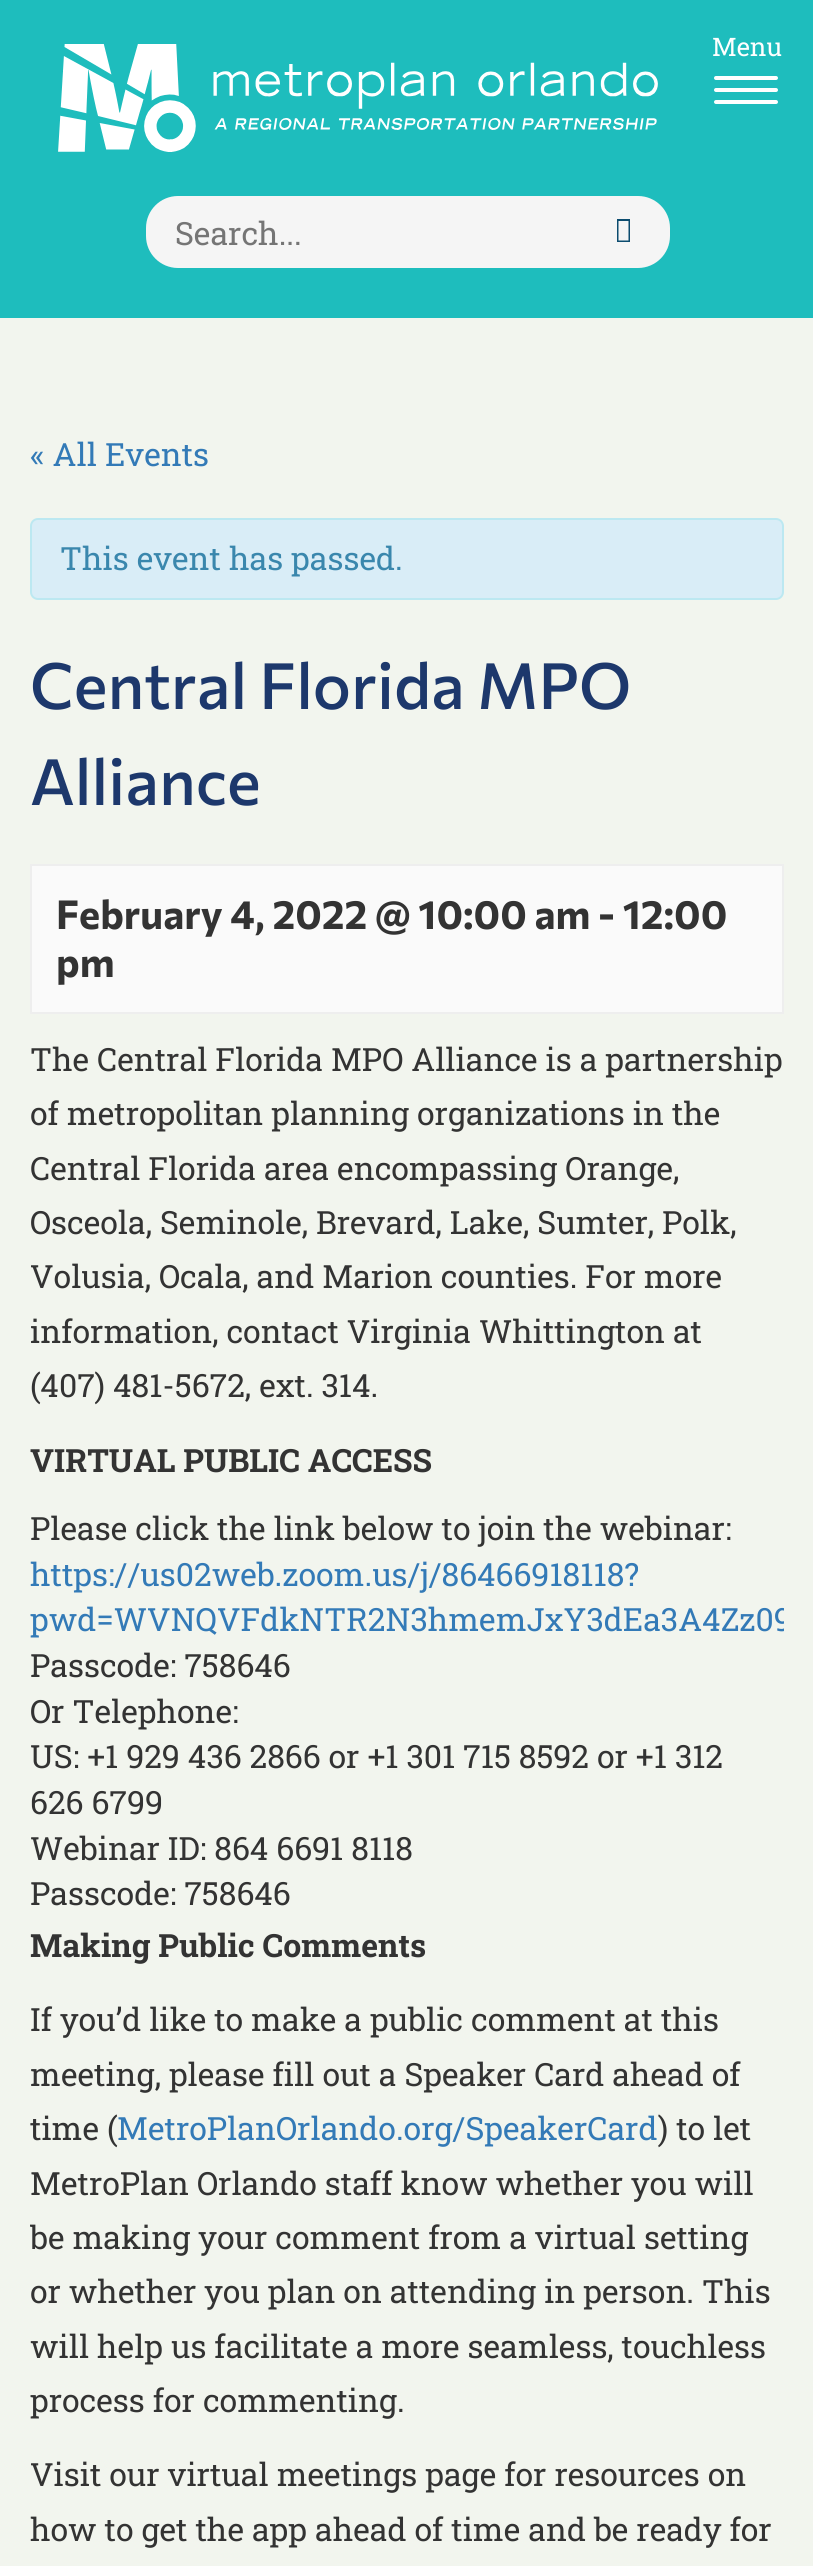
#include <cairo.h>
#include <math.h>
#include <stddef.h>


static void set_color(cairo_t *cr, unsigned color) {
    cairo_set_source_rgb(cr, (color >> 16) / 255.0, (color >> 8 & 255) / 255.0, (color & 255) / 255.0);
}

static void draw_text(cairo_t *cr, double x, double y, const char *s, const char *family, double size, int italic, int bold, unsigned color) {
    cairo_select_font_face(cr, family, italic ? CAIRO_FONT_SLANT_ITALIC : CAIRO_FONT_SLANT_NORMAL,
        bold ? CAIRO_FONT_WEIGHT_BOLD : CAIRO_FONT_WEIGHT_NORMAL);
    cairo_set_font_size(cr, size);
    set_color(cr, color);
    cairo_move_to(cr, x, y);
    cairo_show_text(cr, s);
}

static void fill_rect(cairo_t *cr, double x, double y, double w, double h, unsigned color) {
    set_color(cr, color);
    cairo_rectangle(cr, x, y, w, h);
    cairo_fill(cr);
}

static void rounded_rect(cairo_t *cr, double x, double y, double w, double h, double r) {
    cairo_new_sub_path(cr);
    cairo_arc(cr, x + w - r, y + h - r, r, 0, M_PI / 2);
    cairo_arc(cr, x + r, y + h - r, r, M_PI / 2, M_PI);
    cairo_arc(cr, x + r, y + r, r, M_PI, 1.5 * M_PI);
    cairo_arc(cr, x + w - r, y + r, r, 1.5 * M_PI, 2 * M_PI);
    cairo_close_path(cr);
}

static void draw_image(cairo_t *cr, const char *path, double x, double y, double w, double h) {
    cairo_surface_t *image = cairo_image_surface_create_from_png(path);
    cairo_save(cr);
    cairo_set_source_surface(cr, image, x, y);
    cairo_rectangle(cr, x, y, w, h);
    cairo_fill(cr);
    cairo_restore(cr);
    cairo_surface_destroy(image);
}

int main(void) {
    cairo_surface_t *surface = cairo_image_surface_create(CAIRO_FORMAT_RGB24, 813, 2566);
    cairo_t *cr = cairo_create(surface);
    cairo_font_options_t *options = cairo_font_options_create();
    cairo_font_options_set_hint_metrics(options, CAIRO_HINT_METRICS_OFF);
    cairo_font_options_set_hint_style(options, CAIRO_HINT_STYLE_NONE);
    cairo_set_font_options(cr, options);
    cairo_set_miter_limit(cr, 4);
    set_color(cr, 0x1EBDBD);
    cairo_paint(cr);
    draw_image(cr, "assets/img1.png", 58, 44, 600, 108);
    draw_text(cr, 712, 56, "Menu", "Roboto Slab", 25.5, 0, 0, 0xFFFFFF);
    rounded_rect(cr, 714, 76, 64, 4, 2);
    cairo_fill(cr);
    rounded_rect(cr, 714, 88, 64, 4, 2);
    cairo_fill(cr);
    rounded_rect(cr, 714, 100, 64, 4, 2);
    cairo_fill(cr);
    set_color(cr, 0xF5F5F5);
    rounded_rect(cr, 146, 196, 524, 72, 32);
    cairo_fill(cr);
    draw_text(cr, 175, 245, "Search...", "Roboto Slab", 32, 0, 0, 0x757575);
    set_color(cr, 0x0C4C6F);
    cairo_new_path(cr);
    cairo_move_to(cr, 617, 242);
    cairo_line_to(cr, 617, 219);
    cairo_line_to(cr, 630, 219);
    cairo_line_to(cr, 630, 242);
    cairo_close_path(cr);
    cairo_move_to(cr, 618.5, 240.5);
    cairo_line_to(cr, 628.5, 240.5);
    cairo_line_to(cr, 628.5, 221);
    cairo_line_to(cr, 618.5, 221);
    cairo_close_path(cr);
    cairo_fill(cr);
    fill_rect(cr, 0, 318, 813, 2248, 0xF2F5EE);
    draw_text(cr, 30, 466, "« All Events", "Roboto Slab", 32, 0, 0, 0x337AB7);
    set_color(cr, 0xD9EDF7);
    rounded_rect(cr, 31, 519, 752, 80, 7);
    cairo_fill_preserve(cr);
    set_color(cr, 0xBCE8F1);
    cairo_stroke(cr);
    draw_text(cr, 60, 570, "This event has passed.", "Roboto Slab", 32, 0, 0, 0x3A87AD);
    draw_text(cr, 30, 709, "Central Florida MPO", "Commissioner Medium", 64, 0, 0, 0x1D386C);
    draw_text(cr, 30, 805, "Alliance", "Commissioner Medium", 64, 0, 0, 0x1D386C);
    set_color(cr, 0xFAFAFA);
    cairo_rectangle(cr, 31, 865, 752, 148);
    cairo_fill_preserve(cr);
    set_color(cr, 0xEEEEEE);
    cairo_stroke(cr);
    draw_text(cr, 56, 929, "February 4, 2022 @ 10:00 am - 12:00", "Commissioner", 40, 0, 1, 0x333333);
    draw_text(cr, 56, 977, "pm", "Commissioner", 40, 0, 1, 0x333333);
    draw_text(cr, 30, 1071, "The Central Florida MPO Alliance is a partnership", "Roboto Slab", 32, 0, 0, 0x333333);
    draw_text(cr, 30, 1125, "of metropolitan planning organizations in the", "Roboto Slab", 32, 0, 0, 0x333333);
    draw_text(cr, 30, 1180, "Central Florida area encompassing Orange,", "Roboto Slab", 32, 0, 0, 0x333333);
    draw_text(cr, 30, 1234, "Osceola, Seminole, Brevard, Lake, Sumter, Polk,", "Roboto Slab", 32, 0, 0, 0x333333);
    draw_text(cr, 30, 1288, "Volusia, Ocala, and Marion counties. For more", "Roboto Slab", 32, 0, 0, 0x333333);
    draw_text(cr, 30, 1343, "information, contact Virginia Whittington at", "Roboto Slab", 32, 0, 0, 0x333333);
    draw_text(cr, 30, 1397, "(407) 481-5672, ext. 314.", "Roboto Slab", 32, 0, 0, 0x333333);
    draw_text(cr, 30, 1472, "VIRTUAL PUBLIC ACCESS", "Roboto Slab", 32, 0, 1, 0x333333);
    draw_text(cr, 30, 1540, "Please click the link below to join the webinar:", "Roboto Slab", 32, 0, 0, 0x333333);
    draw_text(cr, 30, 1586, "https://us02web.zoom.us/j/86466918118?", "Roboto Slab", 32, 0, 0, 0x337AB7);
    cairo_save(cr);
    cairo_rectangle(cr, 30, 426, 754, 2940);
    cairo_clip(cr);
    draw_text(cr, 30, 1631, "pwd=WVNQVFdkNTR2N3hmemJxY3dEa3A4Zz09", "Roboto Slab", 32, 0, 0, 0x337AB7);
    cairo_restore(cr);
    draw_text(cr, 30, 1677, "Passcode: 758646", "Roboto Slab", 32, 0, 0, 0x333333);
    draw_text(cr, 30, 1723, "Or Telephone:", "Roboto Slab", 32, 0, 0, 0x333333);
    draw_text(cr, 30, 1768, "US: +1 929 436 2866 or +1 301 715 8592 or +1 312", "Roboto Slab", 32, 0, 0, 0x333333);
    draw_text(cr, 30, 1814, "626 6799", "Roboto Slab", 32, 0, 0, 0x333333);
    draw_text(cr, 30, 1860, "Webinar ID: 864 6691 8118", "Roboto Slab", 32, 0, 0, 0x333333);
    draw_text(cr, 30, 1905, "Passcode: 758646", "Roboto Slab", 32, 0, 0, 0x333333);
    draw_text(cr, 30, 1957, "Making Public Comments", "Roboto Slab", 32, 0, 1, 0x333333);
    draw_text(cr, 30, 2031, "If you’d like to make a public comment at this", "Roboto Slab", 32, 0, 0, 0x333333);
    draw_text(cr, 30, 2086, "meeting, please fill out a Speaker Card ahead of", "Roboto Slab", 32, 0, 0, 0x333333);
    draw_text(cr, 30, 2140, "time (", "Roboto Slab", 32, 0, 0, 0x333333);
    draw_text(cr, 117, 2140, "MetroPlanOrlando.org/SpeakerCard", "Roboto Slab", 32, 0, 0, 0x337AB7);
    draw_text(cr, 658, 2140, ") to let", "Roboto Slab", 32, 0, 0, 0x333333);
    draw_text(cr, 30, 2195, "MetroPlan Orlando staff know whether you will", "Roboto Slab", 32, 0, 0, 0x333333);
    cairo_save(cr);
    cairo_rectangle(cr, 30, 426, 754, 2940);
    cairo_clip(cr);
    draw_text(cr, 30, 2249, "be making your comment from a virtual setting", "Roboto Slab", 32, 0, 0, 0x333333);
    cairo_restore(cr);
    draw_text(cr, 30, 2303, "or whether you plan on attending in person. This", "Roboto Slab", 32, 0, 0, 0x333333);
    draw_text(cr, 30, 2358, "will help us facilitate a more seamless, touchless", "Roboto Slab", 32, 0, 0, 0x333333);
    draw_text(cr, 30, 2412, "process for commenting.", "Roboto Slab", 32, 0, 0, 0x333333);
    draw_text(cr, 30, 2486, "Visit our virtual meetings page for resources on", "Roboto Slab", 32, 0, 0, 0x333333);
    draw_text(cr, 30, 2541, "how to get the app ahead of time and be ready for", "Roboto Slab", 32, 0, 0, 0x333333);
    cairo_surface_write_to_png(surface, "output.png");
    cairo_font_options_destroy(options);
    cairo_destroy(cr);
    cairo_surface_destroy(surface);
    return 0;
}
